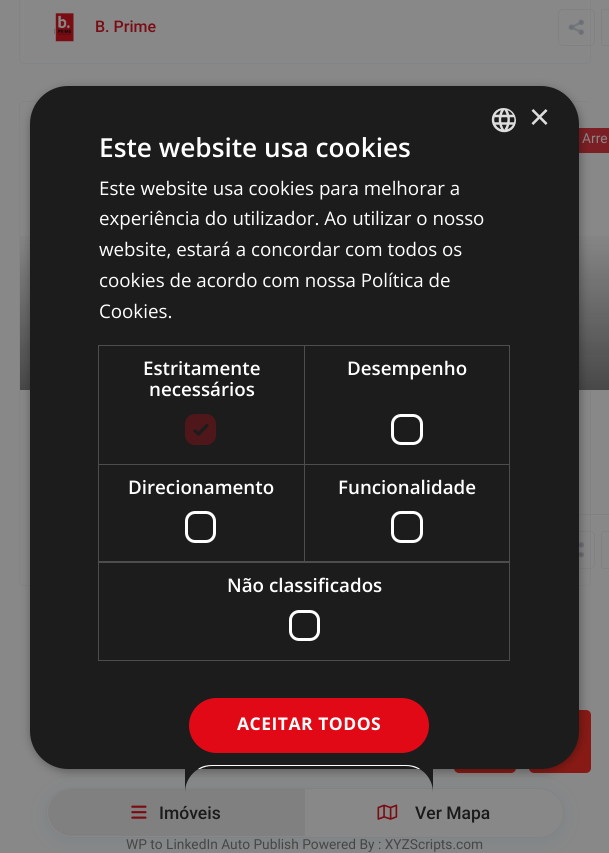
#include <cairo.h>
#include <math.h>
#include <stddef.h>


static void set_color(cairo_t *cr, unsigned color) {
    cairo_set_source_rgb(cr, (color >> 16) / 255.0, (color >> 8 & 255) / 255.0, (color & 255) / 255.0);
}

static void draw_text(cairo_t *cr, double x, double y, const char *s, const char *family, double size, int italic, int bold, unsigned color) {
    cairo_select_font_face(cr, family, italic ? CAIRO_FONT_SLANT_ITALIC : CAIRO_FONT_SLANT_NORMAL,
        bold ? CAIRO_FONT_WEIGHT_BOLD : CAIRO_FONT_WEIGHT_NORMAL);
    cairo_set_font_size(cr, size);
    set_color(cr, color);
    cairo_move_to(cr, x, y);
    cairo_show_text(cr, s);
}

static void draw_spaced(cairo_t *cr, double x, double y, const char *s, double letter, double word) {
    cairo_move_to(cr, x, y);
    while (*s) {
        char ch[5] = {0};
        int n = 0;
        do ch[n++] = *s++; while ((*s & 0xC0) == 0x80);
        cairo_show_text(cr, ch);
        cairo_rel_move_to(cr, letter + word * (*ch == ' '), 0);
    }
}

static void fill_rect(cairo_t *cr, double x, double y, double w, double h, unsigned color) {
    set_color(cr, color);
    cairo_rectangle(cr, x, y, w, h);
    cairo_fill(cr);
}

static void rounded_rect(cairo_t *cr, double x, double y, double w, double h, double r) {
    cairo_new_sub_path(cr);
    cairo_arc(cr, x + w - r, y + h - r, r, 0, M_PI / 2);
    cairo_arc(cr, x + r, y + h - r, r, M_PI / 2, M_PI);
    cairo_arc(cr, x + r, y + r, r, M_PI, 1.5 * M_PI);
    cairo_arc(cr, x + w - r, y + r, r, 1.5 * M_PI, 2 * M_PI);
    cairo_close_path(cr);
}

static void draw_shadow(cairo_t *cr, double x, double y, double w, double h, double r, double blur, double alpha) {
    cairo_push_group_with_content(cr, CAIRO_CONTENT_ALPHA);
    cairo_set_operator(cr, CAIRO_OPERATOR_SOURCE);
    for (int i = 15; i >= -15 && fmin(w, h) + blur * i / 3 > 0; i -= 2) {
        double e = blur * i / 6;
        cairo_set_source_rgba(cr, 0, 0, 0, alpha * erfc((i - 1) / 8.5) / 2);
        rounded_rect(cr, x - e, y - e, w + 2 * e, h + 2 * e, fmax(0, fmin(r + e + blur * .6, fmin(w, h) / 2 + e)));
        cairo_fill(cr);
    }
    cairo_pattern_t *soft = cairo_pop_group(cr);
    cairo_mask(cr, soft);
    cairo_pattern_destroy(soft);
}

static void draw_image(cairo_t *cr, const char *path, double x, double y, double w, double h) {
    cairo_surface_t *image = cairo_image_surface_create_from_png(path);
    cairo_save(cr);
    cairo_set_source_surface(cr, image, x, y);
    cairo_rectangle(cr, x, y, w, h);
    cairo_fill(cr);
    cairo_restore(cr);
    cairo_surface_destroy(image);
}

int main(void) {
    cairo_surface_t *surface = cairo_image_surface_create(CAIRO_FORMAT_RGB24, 609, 853);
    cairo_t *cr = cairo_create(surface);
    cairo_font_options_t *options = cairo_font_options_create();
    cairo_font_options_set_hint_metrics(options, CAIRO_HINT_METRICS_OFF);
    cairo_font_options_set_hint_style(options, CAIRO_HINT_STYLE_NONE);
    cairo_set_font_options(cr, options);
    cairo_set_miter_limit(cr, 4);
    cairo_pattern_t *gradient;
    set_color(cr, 0x888888);
    cairo_paint(cr);
    rounded_rect(cr, 19.5, -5.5, 571, 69, 4.5);
    set_color(cr, 0x818588);
    cairo_set_line_width(cr, 1);
    cairo_stroke(cr);
    draw_image(cr, "assets/img1.png", 54, 13, 20, 29);
    draw_text(cr, 95, 32, "B. Prime", "Roboto Medium", 16, 0, 0, 0x7A0D14);
    draw_image(cr, "assets/img2.png", 568, 19, 16, 16);
    rounded_rect(cr, 558.5, 9.5, 36, 36, 4.5);
    set_color(cr, 0x808284);
    cairo_stroke(cr);
    rounded_rect(cr, 601.5, 9.5, 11, 36, 2);
    cairo_stroke(cr);
    rounded_rect(cr, 19.5, 101.5, 571, 484, 4.5);
    set_color(cr, 0x818588);
    cairo_stroke(cr);
    set_color(cr, 0x888888);
    cairo_new_path(cr);
    cairo_move_to(cr, 25, 103);
    cairo_line_to(cr, 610, 103);
    cairo_line_to(cr, 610, 390);
    cairo_line_to(cr, 20, 390);
    cairo_line_to(cr, 20, 108);
    cairo_curve_to(cr, 20, 105, 22, 103, 25, 103);
    cairo_close_path(cr);
    cairo_fill(cr);
    cairo_set_source_rgba(cr, 0.478, 0.051, 0.078, 0.85);
    cairo_rectangle(cr, 579, 128, 30, 25);
    cairo_fill(cr);
    draw_text(cr, 582, 143, "Arre", "Roboto", 13.75, 0, 0, 0x888888);
    gradient = cairo_pattern_create_linear(364, 390, 364, 103);
    cairo_pattern_add_color_stop_rgba(gradient, 0, 0.035, 0.035, 0.035, 0.5);
    cairo_pattern_add_color_stop_rgba(gradient, 0.56, 0.035, 0.035, 0.035, 0);
    cairo_set_source(cr, gradient);
    cairo_pattern_destroy(gradient);
    cairo_rectangle(cr, 20, 236, 589, 154);
    cairo_fill(cr);
    fill_rect(cr, 579, 514, 30, 1, 0x808284);
    draw_image(cr, "assets/img3.png", 579, 542, 5, 16);
    rounded_rect(cr, 558.5, 531.5, 36, 37, 4.5);
    cairo_stroke(cr);
    rounded_rect(cr, 601.5, 531.5, 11, 37, 2);
    cairo_stroke(cr);
    set_color(cr, 0x0C5588);
    draw_shadow(cr, 46, 791, 518, 50, 25, 9, 0.09);
    set_color(cr, 0x888888);
    rounded_rect(cr, 46.5, 788.5, 517, 49, 24.5);
    cairo_fill_preserve(cr);
    set_color(cr, 0x818284);
    cairo_stroke(cr);
    set_color(cr, 0x808080);
    cairo_new_path(cr);
    cairo_move_to(cr, 71.5, 789);
    cairo_line_to(cr, 305, 789);
    cairo_line_to(cr, 305, 836);
    cairo_line_to(cr, 71.5, 836);
    cairo_curve_to(cr, 58.5, 836, 48, 825.5, 48, 812.5);
    cairo_curve_to(cr, 48, 799.5, 58.5, 789, 71.5, 789);
    cairo_close_path(cr);
    cairo_fill(cr);
    draw_image(cr, "assets/img4.png", 131, 805, 16, 14);
    draw_text(cr, 159, 819, "Imóveis", "Roboto Medium", 17.5, 0, 0, 0x1A1A1A);
    draw_image(cr, "assets/img5.png", 377, 804, 21, 16);
    draw_text(cr, 415, 819, "Ver Mapa", "Roboto Medium", 17.5, 0, 0, 0x1A1A1A);
    set_color(cr, 0x881A15);
    rounded_rect(cr, 454, 710, 62, 63, 5);
    cairo_fill(cr);
    rounded_rect(cr, 529, 710, 62, 63, 5);
    cairo_fill(cr);
    set_color(cr, 0x000000);
    draw_shadow(cr, 31, 89, 549, 682, 38, 5, 0.35);
    set_color(cr, 0x1C1C1C);
    rounded_rect(cr, 30, 86, 549, 683, 38);
    cairo_fill(cr);
    draw_image(cr, "assets/img6.png", 491, 108, 25, 25);
    draw_text(cr, 529, 129, "×", "Liberation Sans", 36, 0, 0, 0xDDDDDD);
    draw_text(cr, 99, 157, "Este website usa cookies", "Open Sans SemiBold", 26.25, 0, 0, 0xFFFFFF);
    draw_text(cr, 99, 195, "Este website usa cookies para melhorar a", "Open Sans", 18.75, 0, 0, 0xFFFFFF);
    draw_text(cr, 99, 225, "experiência do utilizador. Ao utilizar o nosso", "Open Sans", 18.75, 0, 0, 0xFFFFFF);
    draw_text(cr, 99, 256, "website, estará a concordar com todos os", "Open Sans", 18.75, 0, 0, 0xFFFFFF);
    draw_text(cr, 99, 287, "cookies de acordo com nossa Política de", "Open Sans", 18.75, 0, 0, 0xFFFFFF);
    draw_text(cr, 99, 318, "Cookies.", "Open Sans", 18.75, 0, 0, 0xFFFFFF);
    cairo_rectangle(cr, 98.5, 345.5, 206, 119);
    set_color(cr, 0x4D4D4D);
    cairo_stroke(cr);
    draw_text(cr, 143, 375, "Estritamente", "Open Sans SemiBold", 18.75, 0, 0, 0xFFFFFF);
    draw_text(cr, 149, 396, "necessários", "Open Sans SemiBold", 18.75, 0, 0, 0xFFFFFF);
    set_color(cr, 0x4F171A);
    rounded_rect(cr, 185, 414, 31, 31, 10);
    cairo_fill(cr);
    cairo_new_path(cr);
    cairo_move_to(cr, 194, 430);
    cairo_line_to(cr, 198.5, 434);
    cairo_line_to(cr, 208, 424.5);
    set_color(cr, 0x1C1C1C);
    cairo_set_line_width(cr, 3.3);
    cairo_stroke(cr);
    cairo_rectangle(cr, 304.5, 345.5, 205, 119);
    set_color(cr, 0x4D4D4D);
    cairo_set_line_width(cr, 1);
    cairo_stroke(cr);
    draw_text(cr, 347, 375, "Desempenho", "Open Sans SemiBold", 18.75, 0, 0, 0xFFFFFF);
    rounded_rect(cr, 392.5, 415.5, 29, 28, 8.5);
    cairo_set_line_width(cr, 3);
    cairo_stroke(cr);
    cairo_rectangle(cr, 98.5, 464.5, 206, 98);
    set_color(cr, 0x4D4D4D);
    cairo_set_line_width(cr, 1);
    cairo_stroke(cr);
    draw_text(cr, 128, 494, "Direcionamento", "Open Sans SemiBold", 18.75, 0, 0, 0xFFFFFF);
    rounded_rect(cr, 186.5, 512.5, 28, 29, 8.5);
    cairo_set_line_width(cr, 3);
    cairo_stroke(cr);
    cairo_rectangle(cr, 304.5, 464.5, 205, 98);
    set_color(cr, 0x4D4D4D);
    cairo_set_line_width(cr, 1);
    cairo_stroke(cr);
    draw_text(cr, 338, 494, "Funcionalidade", "Open Sans SemiBold", 18.75, 0, 0, 0xFFFFFF);
    rounded_rect(cr, 392.5, 512.5, 29, 29, 8.5);
    cairo_set_line_width(cr, 3);
    cairo_stroke(cr);
    cairo_rectangle(cr, 98.5, 561.5, 411, 99);
    set_color(cr, 0x4D4D4D);
    cairo_set_line_width(cr, 1);
    cairo_stroke(cr);
    draw_text(cr, 227, 592, "Não classificados", "Open Sans SemiBold", 18.75, 0, 0, 0xFFFFFF);
    rounded_rect(cr, 290.5, 611.5, 28, 28, 8.5);
    cairo_set_line_width(cr, 3);
    cairo_stroke(cr);
    set_color(cr, 0xE20916);
    rounded_rect(cr, 189, 698, 240, 55, 27.5);
    cairo_fill(cr);
    cairo_select_font_face(cr, "Open Sans", CAIRO_FONT_SLANT_NORMAL, CAIRO_FONT_WEIGHT_BOLD);
    cairo_set_font_size(cr, 17.5);
    set_color(cr, 0xFFFFFF);
    draw_spaced(cr, 237, 730, "ACEITAR TODOS", 0.5, 0);
    set_color(cr, 0x1C1C1C);
    cairo_new_path(cr);
    cairo_move_to(cr, 212.5, 765);
    cairo_line_to(cr, 405.5, 765);
    cairo_curve_to(cr, 420.5, 765, 433, 777.5, 433, 792.5);
    cairo_line_to(cr, 433, 769);
    cairo_line_to(cr, 185, 769);
    cairo_line_to(cr, 185, 792.5);
    cairo_curve_to(cr, 185, 777.5, 197.5, 765, 212.5, 765);
    cairo_close_path(cr);
    cairo_fill(cr);
    set_color(cr, 0xFFFFFF);
    cairo_new_path(cr);
    cairo_move_to(cr, 212, 765);
    cairo_curve_to(cr, 207, 765, 202, 766, 198, 769);
    cairo_line_to(cr, 200, 769);
    cairo_curve_to(cr, 204, 767, 208, 766, 212, 766);
    cairo_line_to(cr, 406, 766);
    cairo_curve_to(cr, 410, 766, 414, 767, 418, 769);
    cairo_line_to(cr, 420, 769);
    cairo_curve_to(cr, 416, 766, 411, 765, 406, 765);
    cairo_close_path(cr);
    cairo_fill(cr);
    draw_text(cr, 126, 849, "WP to LinkedIn Auto Publish Powered By : XYZScripts.com", "Roboto", 13.75, 0, 0, 0x464646);
    cairo_surface_write_to_png(surface, "output.png");
    cairo_font_options_destroy(options);
    cairo_destroy(cr);
    cairo_surface_destroy(surface);
    return 0;
}
